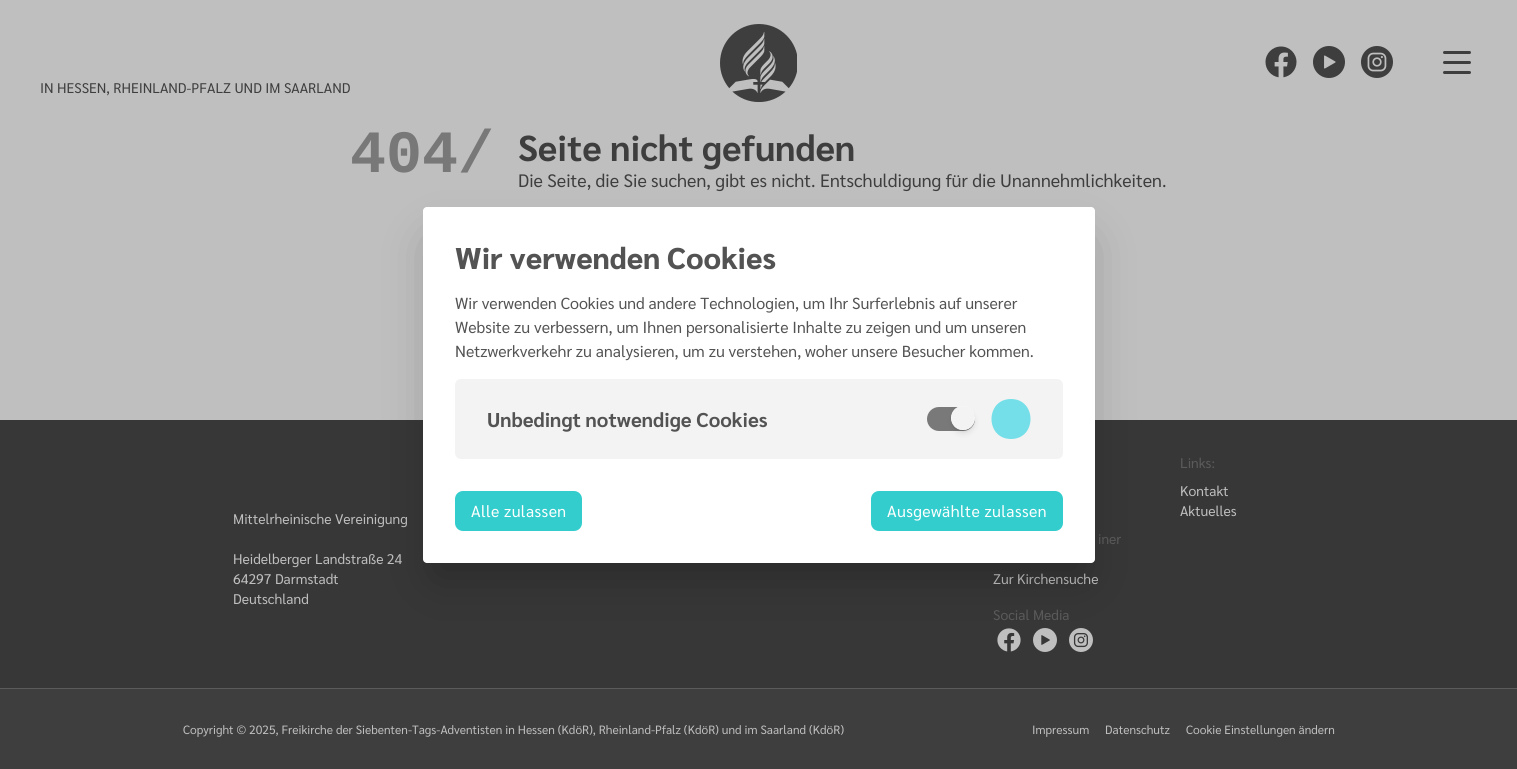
#include <cairo.h>
#include <math.h>
#include <stddef.h>


static void set_color(cairo_t *cr, unsigned color) {
    cairo_set_source_rgb(cr, (color >> 16) / 255.0, (color >> 8 & 255) / 255.0, (color & 255) / 255.0);
}

static void draw_text(cairo_t *cr, double x, double y, const char *s, const char *family, double size, int italic, int bold, unsigned color) {
    cairo_select_font_face(cr, family, italic ? CAIRO_FONT_SLANT_ITALIC : CAIRO_FONT_SLANT_NORMAL,
        bold ? CAIRO_FONT_WEIGHT_BOLD : CAIRO_FONT_WEIGHT_NORMAL);
    cairo_set_font_size(cr, size);
    set_color(cr, color);
    cairo_move_to(cr, x, y);
    cairo_show_text(cr, s);
}

static void draw_spaced(cairo_t *cr, double x, double y, const char *s, double letter, double word) {
    cairo_move_to(cr, x, y);
    while (*s) {
        char ch[5] = {0};
        int n = 0;
        do ch[n++] = *s++; while ((*s & 0xC0) == 0x80);
        cairo_show_text(cr, ch);
        cairo_rel_move_to(cr, letter + word * (*ch == ' '), 0);
    }
}

static void fill_rect(cairo_t *cr, double x, double y, double w, double h, unsigned color) {
    set_color(cr, color);
    cairo_rectangle(cr, x, y, w, h);
    cairo_fill(cr);
}

static void rounded_rect(cairo_t *cr, double x, double y, double w, double h, double r) {
    cairo_new_sub_path(cr);
    cairo_arc(cr, x + w - r, y + h - r, r, 0, M_PI / 2);
    cairo_arc(cr, x + r, y + h - r, r, M_PI / 2, M_PI);
    cairo_arc(cr, x + r, y + r, r, M_PI, 1.5 * M_PI);
    cairo_arc(cr, x + w - r, y + r, r, 1.5 * M_PI, 2 * M_PI);
    cairo_close_path(cr);
}

static void draw_shadow(cairo_t *cr, double x, double y, double w, double h, double r, double blur, double alpha) {
    cairo_push_group_with_content(cr, CAIRO_CONTENT_ALPHA);
    cairo_set_operator(cr, CAIRO_OPERATOR_SOURCE);
    for (int i = 15; i >= -15 && fmin(w, h) + blur * i / 3 > 0; i -= 2) {
        double e = blur * i / 6;
        cairo_set_source_rgba(cr, 0, 0, 0, alpha * erfc((i - 1) / 8.5) / 2);
        rounded_rect(cr, x - e, y - e, w + 2 * e, h + 2 * e, fmax(0, fmin(r + e + blur * .6, fmin(w, h) / 2 + e)));
        cairo_fill(cr);
    }
    cairo_pattern_t *soft = cairo_pop_group(cr);
    cairo_mask(cr, soft);
    cairo_pattern_destroy(soft);
}

static void draw_image(cairo_t *cr, const char *path, double x, double y, double w, double h) {
    cairo_surface_t *image = cairo_image_surface_create_from_png(path);
    cairo_save(cr);
    cairo_set_source_surface(cr, image, x, y);
    cairo_rectangle(cr, x, y, w, h);
    cairo_fill(cr);
    cairo_restore(cr);
    cairo_surface_destroy(image);
}

int main(void) {
    cairo_surface_t *surface = cairo_image_surface_create(CAIRO_FORMAT_RGB24, 1517, 769);
    cairo_t *cr = cairo_create(surface);
    cairo_font_options_t *options = cairo_font_options_create();
    cairo_font_options_set_hint_metrics(options, CAIRO_HINT_METRICS_OFF);
    cairo_font_options_set_hint_style(options, CAIRO_HINT_STYLE_NONE);
    cairo_set_font_options(cr, options);
    cairo_set_miter_limit(cr, 4);
    set_color(cr, 0xBFBFBF);
    cairo_paint(cr);
    draw_image(cr, "assets/img1.png", 720, 24, 77, 78);
    draw_image(cr, "assets/img2.png", 1265, 46, 32, 32);
    draw_image(cr, "assets/img3.png", 1313, 46, 32, 32);
    draw_image(cr, "assets/img4.png", 1361, 46, 32, 32);
    draw_image(cr, "assets/img5.png", 1443, 51, 28, 23);
    draw_text(cr, 40, 93, "IN HESSEN, RHEINLAND-PFALZ UND IM SAARLAND", "Sarabun", 14, 0, 0, 0x3E3E3E);
    draw_text(cr, 350, 172, "404/", "Liberation Mono", 60, 0, 1, 0x787878);
    draw_text(cr, 518, 161, "Seite nicht gefunden", "Sarabun", 36, 0, 1, 0x3E3E3E);
    draw_text(cr, 518, 187, "Die Seite, die Sie suchen, gibt es nicht. Entschuldigung für die Unannehmlichkeiten.", "Sarabun", 18, 0, 0, 0x3E3E3E);
    fill_rect(cr, 0, 420, 1517, 268, 0x373737);
    draw_text(cr, 233, 524, "Mittelrheinische Vereinigung", "Sarabun", 14, 0, 0, 0xBFBFBF);
    draw_text(cr, 233, 564, "Heidelberger Landstraße 24", "Sarabun", 14, 0, 0, 0xBFBFBF);
    draw_text(cr, 233, 584, "64297 Darmstadt", "Sarabun", 14, 0, 0, 0xBFBFBF);
    draw_text(cr, 233, 604, "Deutschland", "Sarabun", 14, 0, 0, 0xBFBFBF);
    draw_text(cr, 1180, 468, "Links:", "Sarabun", 14, 0, 0, 0x5B5B5B);
    draw_text(cr, 1180, 496, "Kontakt", "Sarabun", 14, 0, 0, 0xBFBFBF);
    draw_text(cr, 1180, 516, "Aktuelles", "Sarabun", 14, 0, 0, 0xBFBFBF);
    draw_text(cr, 1098, 544, "iner", "Sarabun", 14, 0, 0, 0x5B5B5B);
    draw_text(cr, 993, 584, "Zur Kirchensuche", "Sarabun", 14, 0, 0, 0xBFBFBF);
    draw_text(cr, 993, 620, "Social Media", "Sarabun", 14, 0, 0, 0x5B5B5B);
    draw_image(cr, "assets/img6.png", 997, 628, 24, 24);
    draw_image(cr, "assets/img7.png", 1033, 628, 24, 24);
    draw_image(cr, "assets/img8.png", 1069, 628, 24, 24);
    fill_rect(cr, 0, 689, 1517, 80, 0x3E3E3E);
    fill_rect(cr, 0, 688, 1517, 1, 0x5B5B5B);
    draw_text(cr, 183, 734, "Copyright © 2025, Freikirche der Siebenten-Tags-Adventisten in Hessen (KdöR), Rheinland-Pfalz (KdöR) und im Saarland (KdöR)", "Sarabun", 12, 0, 0, 0xBFBFBF);
    draw_text(cr, 1032, 734, "Impressum", "Sarabun", 12, 0, 0, 0xBFBFBF);
    draw_text(cr, 1105, 734, "Datenschutz", "Sarabun", 12, 0, 0, 0xBFBFBF);
    draw_text(cr, 1186, 734, "Cookie Einstellungen ändern", "Sarabun", 12, 0, 0, 0xBFBFBF);
    set_color(cr, 0x000000);
    draw_shadow(cr, 435, 244, 648, 332, 0, 25, 0.25);
    set_color(cr, 0xFFFFFF);
    rounded_rect(cr, 423, 207, 672, 356, 4);
    cairo_fill(cr);
    draw_text(cr, 455, 269, "Wir verwenden Cookies", "Sarabun ExtraBold", 30, 0, 0, 0x535353);
    draw_text(cr, 455, 309, "Wir verwenden Cookies und andere Technologien, um Ihr Surferlebnis auf unserer", "Sarabun", 16, 0, 0, 0x535353);
    draw_text(cr, 455, 333, "Website zu verbessern, um Ihnen personalisierte Inhalte zu zeigen und um unseren", "Sarabun", 16, 0, 0, 0x535353);
    draw_text(cr, 455, 357, "Netzwerkverkehr zu analysieren, um zu verstehen, woher unsere Besucher kommen.", "Sarabun", 16, 0, 0, 0x535353);
    set_color(cr, 0xF3F3F3);
    rounded_rect(cr, 455, 379, 608, 80, 6);
    cairo_fill(cr);
    draw_text(cr, 487, 427, "Unbedingt notwendige Cookies", "Sarabun", 20, 0, 1, 0x535353);
    set_color(cr, 0x797979);
    rounded_rect(cr, 927, 407, 48, 24, 12);
    cairo_fill(cr);
    set_color(cr, 0x000000);
    draw_shadow(cr, 953, 410, 20, 20, 10, 2, 0.1);
    draw_shadow(cr, 952, 411, 22, 22, 11, 3, 0.1);
    set_color(cr, 0xFFFFFF);
    cairo_arc(cr, 963, 418, 12, 0, 2 * M_PI);
    cairo_fill(cr);
    set_color(cr, 0xF3F3F3);
    cairo_new_path(cr);
    cairo_move_to(cr, 963, 406);
    cairo_curve_to(cr, 978.5, 406, 978.5, 430, 963, 430);
    cairo_curve_to(cr, 947.5, 430, 947.5, 406, 963, 406);
    cairo_close_path(cr);
    cairo_fill(cr);
    set_color(cr, 0x74DFE8);
    cairo_new_path(cr);
    cairo_move_to(cr, 1011, 399);
    cairo_curve_to(cr, 1037, 399, 1037, 439, 1011, 439);
    cairo_curve_to(cr, 985, 439, 985, 399, 1011, 399);
    cairo_close_path(cr);
    cairo_fill(cr);
    set_color(cr, 0x34CDCD);
    rounded_rect(cr, 455, 491, 127, 40, 8);
    cairo_fill(cr);
    cairo_select_font_face(cr, "Sarabun", CAIRO_FONT_SLANT_NORMAL, CAIRO_FONT_WEIGHT_NORMAL);
    cairo_set_font_size(cr, 16);
    set_color(cr, 0xFFFFFF);
    draw_spaced(cr, 471, 517, "Alle zulassen", 0.4, 0);
    set_color(cr, 0x34CDCD);
    rounded_rect(cr, 871, 491, 192, 40, 8);
    cairo_fill(cr);
    set_color(cr, 0xFFFFFF);
    draw_spaced(cr, 887, 517, "Ausgewählte zulassen", 0.4, 0);
    cairo_surface_write_to_png(surface, "output.png");
    cairo_font_options_destroy(options);
    cairo_destroy(cr);
    cairo_surface_destroy(surface);
    return 0;
}
